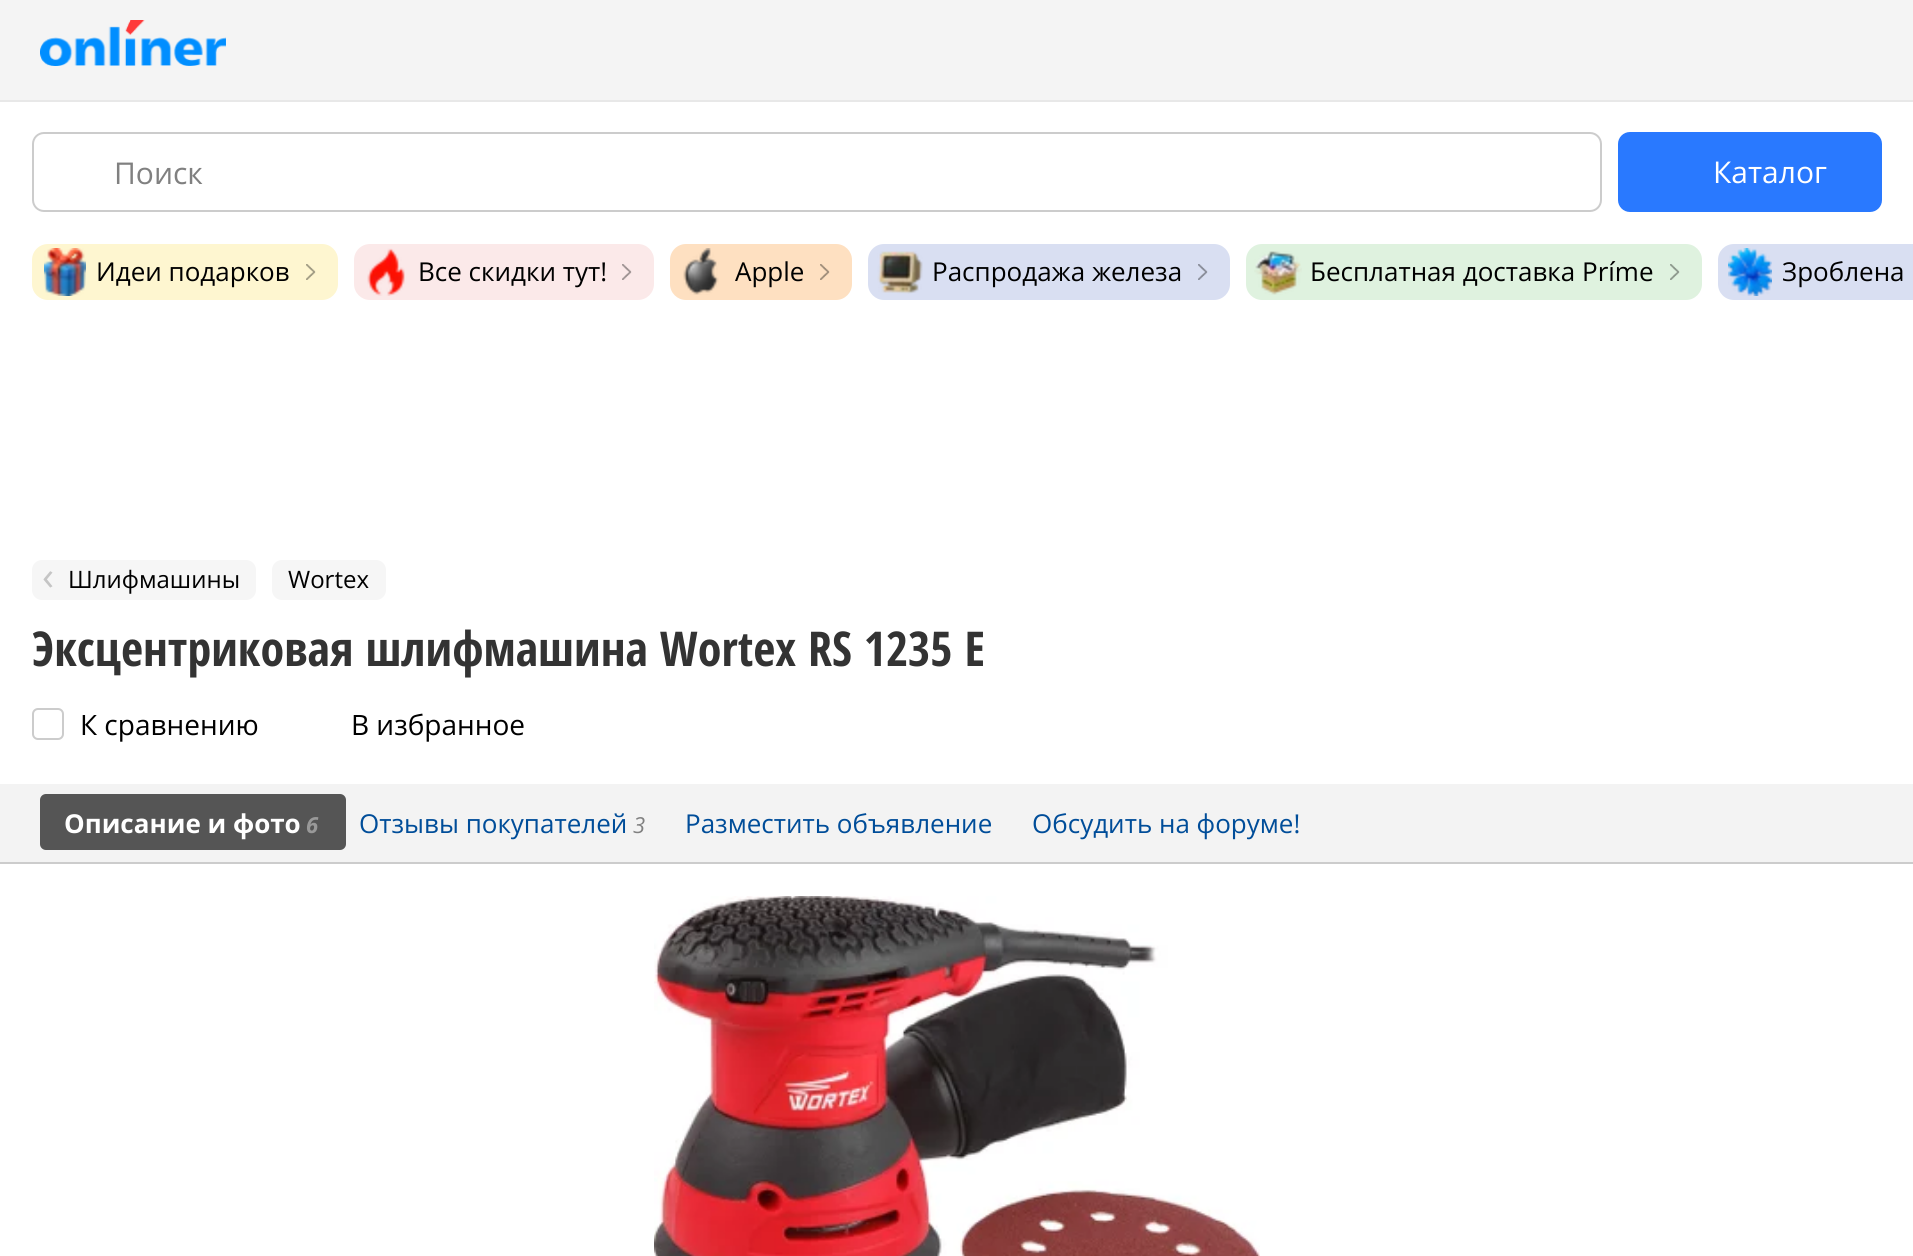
#include <cairo.h>
#include <math.h>
#include <stddef.h>


static void set_color(cairo_t *cr, unsigned color) {
    cairo_set_source_rgb(cr, (color >> 16) / 255.0, (color >> 8 & 255) / 255.0, (color & 255) / 255.0);
}

static void draw_text(cairo_t *cr, double x, double y, const char *s, const char *family, double size, int italic, int bold, unsigned color) {
    cairo_select_font_face(cr, family, italic ? CAIRO_FONT_SLANT_ITALIC : CAIRO_FONT_SLANT_NORMAL,
        bold ? CAIRO_FONT_WEIGHT_BOLD : CAIRO_FONT_WEIGHT_NORMAL);
    cairo_set_font_size(cr, size);
    set_color(cr, color);
    cairo_move_to(cr, x, y);
    cairo_show_text(cr, s);
}

static void fill_rect(cairo_t *cr, double x, double y, double w, double h, unsigned color) {
    set_color(cr, color);
    cairo_rectangle(cr, x, y, w, h);
    cairo_fill(cr);
}

static void rounded_rect(cairo_t *cr, double x, double y, double w, double h, double r) {
    cairo_new_sub_path(cr);
    cairo_arc(cr, x + w - r, y + h - r, r, 0, M_PI / 2);
    cairo_arc(cr, x + r, y + h - r, r, M_PI / 2, M_PI);
    cairo_arc(cr, x + r, y + r, r, M_PI, 1.5 * M_PI);
    cairo_arc(cr, x + w - r, y + r, r, 1.5 * M_PI, 2 * M_PI);
    cairo_close_path(cr);
}

static void draw_image(cairo_t *cr, const char *path, double x, double y, double w, double h) {
    cairo_surface_t *image = cairo_image_surface_create_from_png(path);
    cairo_save(cr);
    cairo_set_source_surface(cr, image, x, y);
    cairo_rectangle(cr, x, y, w, h);
    cairo_fill(cr);
    cairo_restore(cr);
    cairo_surface_destroy(image);
}

int main(void) {
    cairo_surface_t *surface = cairo_image_surface_create(CAIRO_FORMAT_RGB24, 1913, 1256);
    cairo_t *cr = cairo_create(surface);
    cairo_font_options_t *options = cairo_font_options_create();
    cairo_font_options_set_hint_metrics(options, CAIRO_HINT_METRICS_OFF);
    cairo_font_options_set_hint_style(options, CAIRO_HINT_STYLE_NONE);
    cairo_set_font_options(cr, options);
    cairo_set_miter_limit(cr, 4);
    set_color(cr, 0xFFFFFF);
    cairo_paint(cr);
    fill_rect(cr, 0, 0, 1913, 100, 0xF4F4F4);
    fill_rect(cr, 0, 100, 1913, 2, 0xE8E8E8);
    draw_image(cr, "assets/img1.png", 40, 20, 186, 46);
    rounded_rect(cr, 33, 133, 1568, 78, 11);
    set_color(cr, 0xCCCCCC);
    cairo_stroke(cr);
    draw_text(cr, 114, 184, "Поиск", "Open Sans", 30, 0, 0, 0x808080);
    set_color(cr, 0x2979FF);
    rounded_rect(cr, 1618, 132, 264, 80, 12);
    cairo_fill(cr);
    draw_text(cr, 1713, 183, "Каталог", "Open Sans", 30, 0, 0, 0xFFFFFF);
    set_color(cr, 0xFEF6D0);
    rounded_rect(cr, 32, 244, 306, 56, 16);
    cairo_fill(cr);
    draw_image(cr, "assets/img2.png", 306, 264, 10, 16);
    draw_image(cr, "assets/img3.png", 44, 248, 42, 48);
    draw_text(cr, 96, 281, "Идеи подарков", "Open Sans", 26, 0, 0, 0x000000);
    set_color(cr, 0xFBE9E9);
    rounded_rect(cr, 354, 244, 300, 56, 16);
    cairo_fill(cr);
    draw_image(cr, "assets/img4.png", 622, 264, 10, 16);
    draw_image(cr, "assets/img5.png", 367, 248, 38, 48);
    draw_text(cr, 418, 281, "Все скидки тут!", "Open Sans", 26, 0, 0, 0x000000);
    set_color(cr, 0xFEE0C1);
    rounded_rect(cr, 670, 244, 182, 56, 16);
    cairo_fill(cr);
    draw_image(cr, "assets/img6.png", 820, 264, 10, 16);
    draw_image(cr, "assets/img7.png", 683, 248, 36, 47);
    draw_text(cr, 735, 281, "Apple", "Open Sans", 26, 0, 0, 0x000000);
    set_color(cr, 0xD9DFF2);
    rounded_rect(cr, 868, 244, 362, 56, 16);
    cairo_fill(cr);
    draw_image(cr, "assets/img8.png", 1198, 264, 10, 16);
    draw_image(cr, "assets/img9.png", 877, 251, 46, 43);
    draw_text(cr, 932, 281, "Распродажа железа", "Open Sans", 26, 0, 0, 0x000000);
    set_color(cr, 0xDFF2DF);
    rounded_rect(cr, 1246, 244, 456, 56, 16);
    cairo_fill(cr);
    draw_image(cr, "assets/img10.png", 1670, 264, 10, 16);
    draw_image(cr, "assets/img11.png", 1254, 251, 48, 44);
    draw_text(cr, 1310, 281, "Бесплатная доставка Príme", "Open Sans", 26, 0, 0, 0x000000);
    set_color(cr, 0xD9DFF2);
    cairo_new_path(cr);
    cairo_move_to(cr, 1734, 244);
    cairo_line_to(cr, 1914, 244);
    cairo_line_to(cr, 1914, 300);
    cairo_line_to(cr, 1734, 300);
    cairo_curve_to(cr, 1725, 300, 1718, 293, 1718, 284);
    cairo_line_to(cr, 1718, 260);
    cairo_curve_to(cr, 1718, 251, 1725, 244, 1734, 244);
    cairo_close_path(cr);
    cairo_fill(cr);
    draw_image(cr, "assets/img12.png", 1728, 248, 44, 48);
    draw_text(cr, 1782, 281, "Зроблена", "Open Sans", 26, 0, 0, 0x000000);
    set_color(cr, 0xF6F6F6);
    rounded_rect(cr, 32, 560, 224, 40, 10);
    cairo_fill(cr);
    draw_text(cr, 42, 590, "‹", "Open Sans", 40, 0, 0, 0xC5C5C5);
    draw_text(cr, 68, 588, "Шлифмашины", "Open Sans", 24, 0, 0, 0x000000);
    set_color(cr, 0xF6F6F6);
    rounded_rect(cr, 272, 560, 114, 40, 10);
    cairo_fill(cr);
    draw_text(cr, 288, 588, "Wortex", "Open Sans", 24, 0, 0, 0x000000);
    draw_text(cr, 32, 666, "Эксцентриковая шлифмашина Wortex RS 1235 E", "Open Sans Condensed", 48, 0, 1, 0x333333);
    rounded_rect(cr, 33, 709, 30, 30, 5);
    set_color(cr, 0xCCCCCC);
    cairo_stroke(cr);
    draw_text(cr, 80, 735, "К сравнению", "Open Sans", 28, 0, 0, 0x000000);
    draw_text(cr, 351, 735, "В избранное", "Open Sans", 28, 0, 0, 0x000000);
    fill_rect(cr, 0, 784, 1913, 78, 0xF3F3F3);
    fill_rect(cr, 0, 862, 1913, 2, 0xCCCCCC);
    set_color(cr, 0x555555);
    rounded_rect(cr, 40, 794, 306, 56, 6);
    cairo_fill(cr);
    draw_text(cr, 64, 833, "Описание и фото", "Open Sans", 26, 0, 1, 0xFFFFFF);
    draw_text(cr, 306, 833, "6", "Open Sans", 22, 1, 1, 0x999999);
    draw_text(cr, 359, 833, "Отзывы покупателей", "Open Sans", 26, 0, 0, 0x004D99);
    draw_text(cr, 633, 833, "3", "Open Sans", 22, 1, 0, 0x808080);
    draw_text(cr, 685, 833, "Разместить объявление", "Open Sans", 26, 0, 0, 0x004D99);
    draw_text(cr, 1032, 833, "Обсудить на форуме!", "Open Sans", 26, 0, 0, 0x004D99);
    draw_image(cr, "assets/img13.png", 654, 896, 606, 360);
    cairo_surface_write_to_png(surface, "output.png");
    cairo_font_options_destroy(options);
    cairo_destroy(cr);
    cairo_surface_destroy(surface);
    return 0;
}
